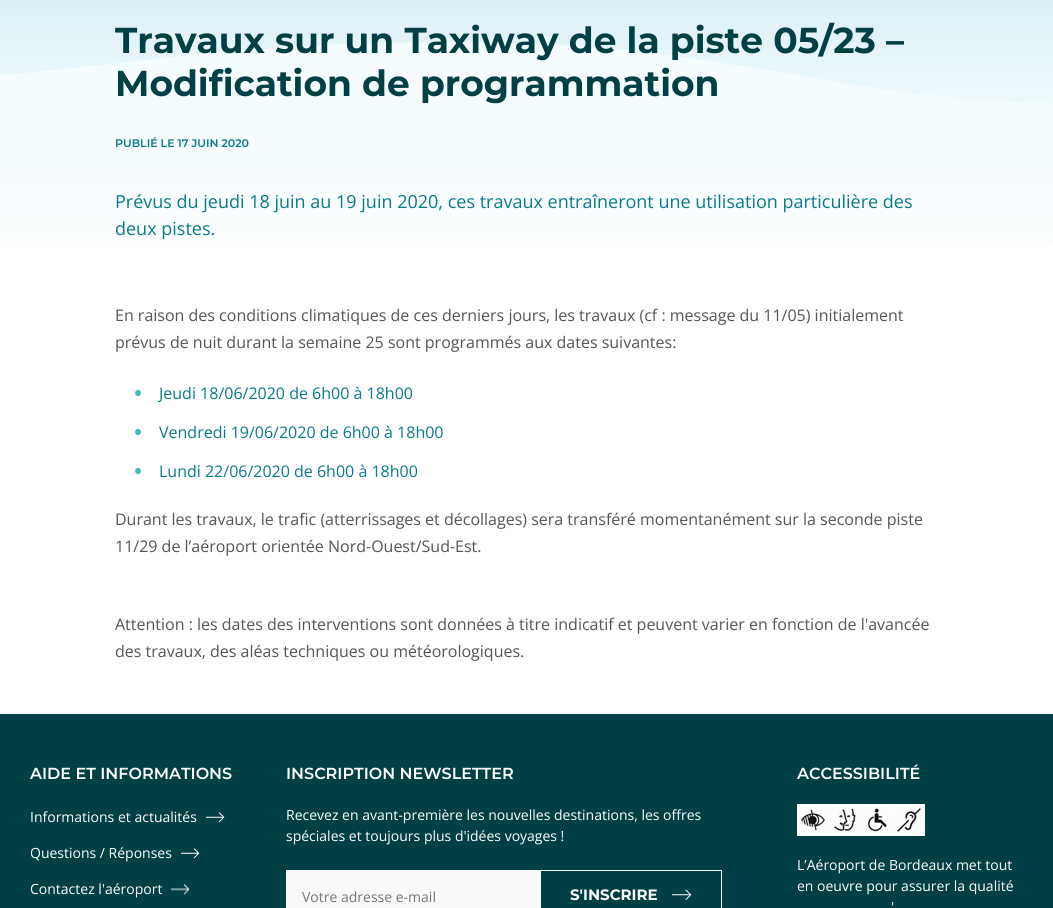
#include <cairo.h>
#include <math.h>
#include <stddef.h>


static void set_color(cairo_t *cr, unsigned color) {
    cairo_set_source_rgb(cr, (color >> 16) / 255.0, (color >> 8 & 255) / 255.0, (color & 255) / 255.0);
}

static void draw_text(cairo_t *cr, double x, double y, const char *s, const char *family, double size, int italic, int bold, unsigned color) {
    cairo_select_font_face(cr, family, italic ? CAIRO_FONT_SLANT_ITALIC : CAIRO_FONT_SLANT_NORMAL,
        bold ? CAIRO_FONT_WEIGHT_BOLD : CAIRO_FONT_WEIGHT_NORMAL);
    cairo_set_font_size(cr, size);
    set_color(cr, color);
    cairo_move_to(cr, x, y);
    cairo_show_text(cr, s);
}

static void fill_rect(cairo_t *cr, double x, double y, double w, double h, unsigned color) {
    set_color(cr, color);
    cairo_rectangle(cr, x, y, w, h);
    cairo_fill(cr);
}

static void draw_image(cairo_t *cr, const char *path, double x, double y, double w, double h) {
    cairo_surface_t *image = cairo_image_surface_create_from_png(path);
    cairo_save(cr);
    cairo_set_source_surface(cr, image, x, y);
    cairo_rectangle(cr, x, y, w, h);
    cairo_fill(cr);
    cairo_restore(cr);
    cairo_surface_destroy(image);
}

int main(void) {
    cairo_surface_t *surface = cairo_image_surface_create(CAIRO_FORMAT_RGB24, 1053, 908);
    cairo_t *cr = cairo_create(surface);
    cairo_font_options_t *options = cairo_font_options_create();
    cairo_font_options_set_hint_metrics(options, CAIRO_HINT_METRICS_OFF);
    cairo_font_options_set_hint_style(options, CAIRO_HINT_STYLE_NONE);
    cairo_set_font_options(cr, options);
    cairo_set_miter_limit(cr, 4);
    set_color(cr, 0xFFFFFF);
    cairo_paint(cr);
    draw_image(cr, "assets/img1.png", 0, 0, 1053, 245);
    draw_text(cr, 115, 53, "Travaux sur un Taxiway de la piste 05/23 –", "Montserrat", 36, 0, 1, 0x003F43);
    draw_text(cr, 115, 96, "Modification de programmation", "Montserrat", 36, 0, 1, 0x003F43);
    draw_text(cr, 115, 147, "PUBLIÉ LE 17 JUIN 2020", "Montserrat SemiBold", 11, 0, 0, 0x087A8B);
    draw_text(cr, 115, 208, "Prévus du jeudi 18 juin au 19 juin 2020, ces travaux entraîneront une utilisation particulière des", "Open Sans", 18, 0, 0, 0x087A8B);
    draw_text(cr, 115, 235, "deux pistes.", "Open Sans", 18, 0, 0, 0x087A8B);
    draw_text(cr, 115, 321, "En raison des conditions climatiques de ces derniers jours, les travaux (cf : message du 11/05) initialement", "Open Sans", 16, 0, 0, 0x555555);
    draw_text(cr, 115, 348, "prévus de nuit durant la semaine 25 sont programmés aux dates suivantes:", "Open Sans", 16, 0, 0, 0x555555);
    set_color(cr, 0x45BABD);
    cairo_new_path(cr);
    cairo_arc(cr, 138, 393, 3, 0, 2 * M_PI);
    cairo_fill(cr);
    draw_text(cr, 159, 399, "Jeudi 18/06/2020 de 6h00 à 18h00", "Open Sans", 16, 0, 0, 0x087A8B);
    set_color(cr, 0x45BABD);
    cairo_new_path(cr);
    cairo_arc(cr, 138, 432, 3, 0, 2 * M_PI);
    cairo_fill(cr);
    draw_text(cr, 159, 438, "Vendredi 19/06/2020 de 6h00 à 18h00", "Open Sans", 16, 0, 0, 0x087A8B);
    set_color(cr, 0x45BABD);
    cairo_new_path(cr);
    cairo_arc(cr, 138, 471, 3, 0, 2 * M_PI);
    cairo_fill(cr);
    draw_text(cr, 159, 477, "Lundi 22/06/2020 de 6h00 à 18h00", "Open Sans", 16, 0, 0, 0x087A8B);
    draw_text(cr, 115, 525, "Durant les travaux, le trafic (atterrissages et décollages) sera transféré momentanément sur la seconde piste", "Open Sans", 16, 0, 0, 0x555555);
    draw_text(cr, 115, 552, "11/29 de l’aéroport orientée Nord-Ouest/Sud-Est.", "Open Sans", 16, 0, 0, 0x555555);
    draw_text(cr, 115, 630, "Attention : les dates des interventions sont données à titre indicatif et peuvent varier en fonction de l'avancée", "Open Sans", 16, 0, 0, 0x555555);
    draw_text(cr, 115, 657, "des travaux, des aléas techniques ou météorologiques.", "Open Sans", 16, 0, 0, 0x555555);
    fill_rect(cr, 0, 714, 1053, 194, 0x003F43);
    draw_text(cr, 30, 779, "AIDE ET INFORMATIONS", "Montserrat SemiBold", 16, 0, 0, 0xFFFFFF);
    draw_text(cr, 30, 822, "Informations et actualités", "Open Sans", 14, 0, 0, 0xFFFFFF);
    draw_image(cr, "assets/img2.png", 206, 812, 19, 11);
    draw_text(cr, 30, 858, "Questions / Réponses", "Open Sans", 14, 0, 0, 0xFFFFFF);
    draw_image(cr, "assets/img2.png", 181, 848, 19, 11);
    draw_text(cr, 30, 894, "Contactez l'aéroport", "Open Sans", 14, 0, 0, 0xFFFFFF);
    draw_image(cr, "assets/img3.png", 171, 884, 19, 11);
    draw_text(cr, 286, 779, "INSCRIPTION NEWSLETTER", "Montserrat SemiBold", 16, 0, 0, 0xFFFFFF);
    draw_text(cr, 286, 820, "Recevez en avant-première les nouvelles destinations, les offres", "Open Sans", 14, 0, 0, 0xFFFFFF);
    draw_text(cr, 286, 841, "spéciales et toujours plus d'idées voyages !", "Open Sans", 14, 0, 0, 0xFFFFFF);
    set_color(cr, 0xF9F9F9);
    cairo_rectangle(cr, 286.5, 870.5, 253, 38);
    cairo_fill_preserve(cr);
    set_color(cr, 0xFFFFFF);
    cairo_set_line_width(cr, 1);
    cairo_stroke(cr);
    draw_text(cr, 302, 902, "Votre adresse e-mail", "Open Sans", 14, 0, 0, 0x757575);
    cairo_rectangle(cr, 540.5, 870.5, 181, 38);
    set_color(cr, 0xFFFFFF);
    cairo_stroke(cr);
    draw_text(cr, 570, 900, "S'INSCRIRE", "Montserrat", 15, 0, 1, 0xFFFFFF);
    draw_image(cr, "assets/img4.png", 672, 889, 20, 11);
    draw_text(cr, 797, 779, "ACCESSIBILITÉ", "Montserrat SemiBold", 16, 0, 0, 0xFFFFFF);
    draw_image(cr, "assets/img5.png", 797, 804, 128, 32);
    draw_text(cr, 797, 870, "L’Aéroport de Bordeaux met tout", "Open Sans", 14, 0, 0, 0xFFFFFF);
    draw_text(cr, 797, 891, "en oeuvre pour assurer la qualité", "Open Sans", 14, 0, 0, 0xFFFFFF);
    draw_text(cr, 891, 912, "'", "Open Sans", 14, 0, 0, 0xFFFFFF);
    cairo_surface_write_to_png(surface, "output.png");
    cairo_font_options_destroy(options);
    cairo_destroy(cr);
    cairo_surface_destroy(surface);
    return 0;
}
